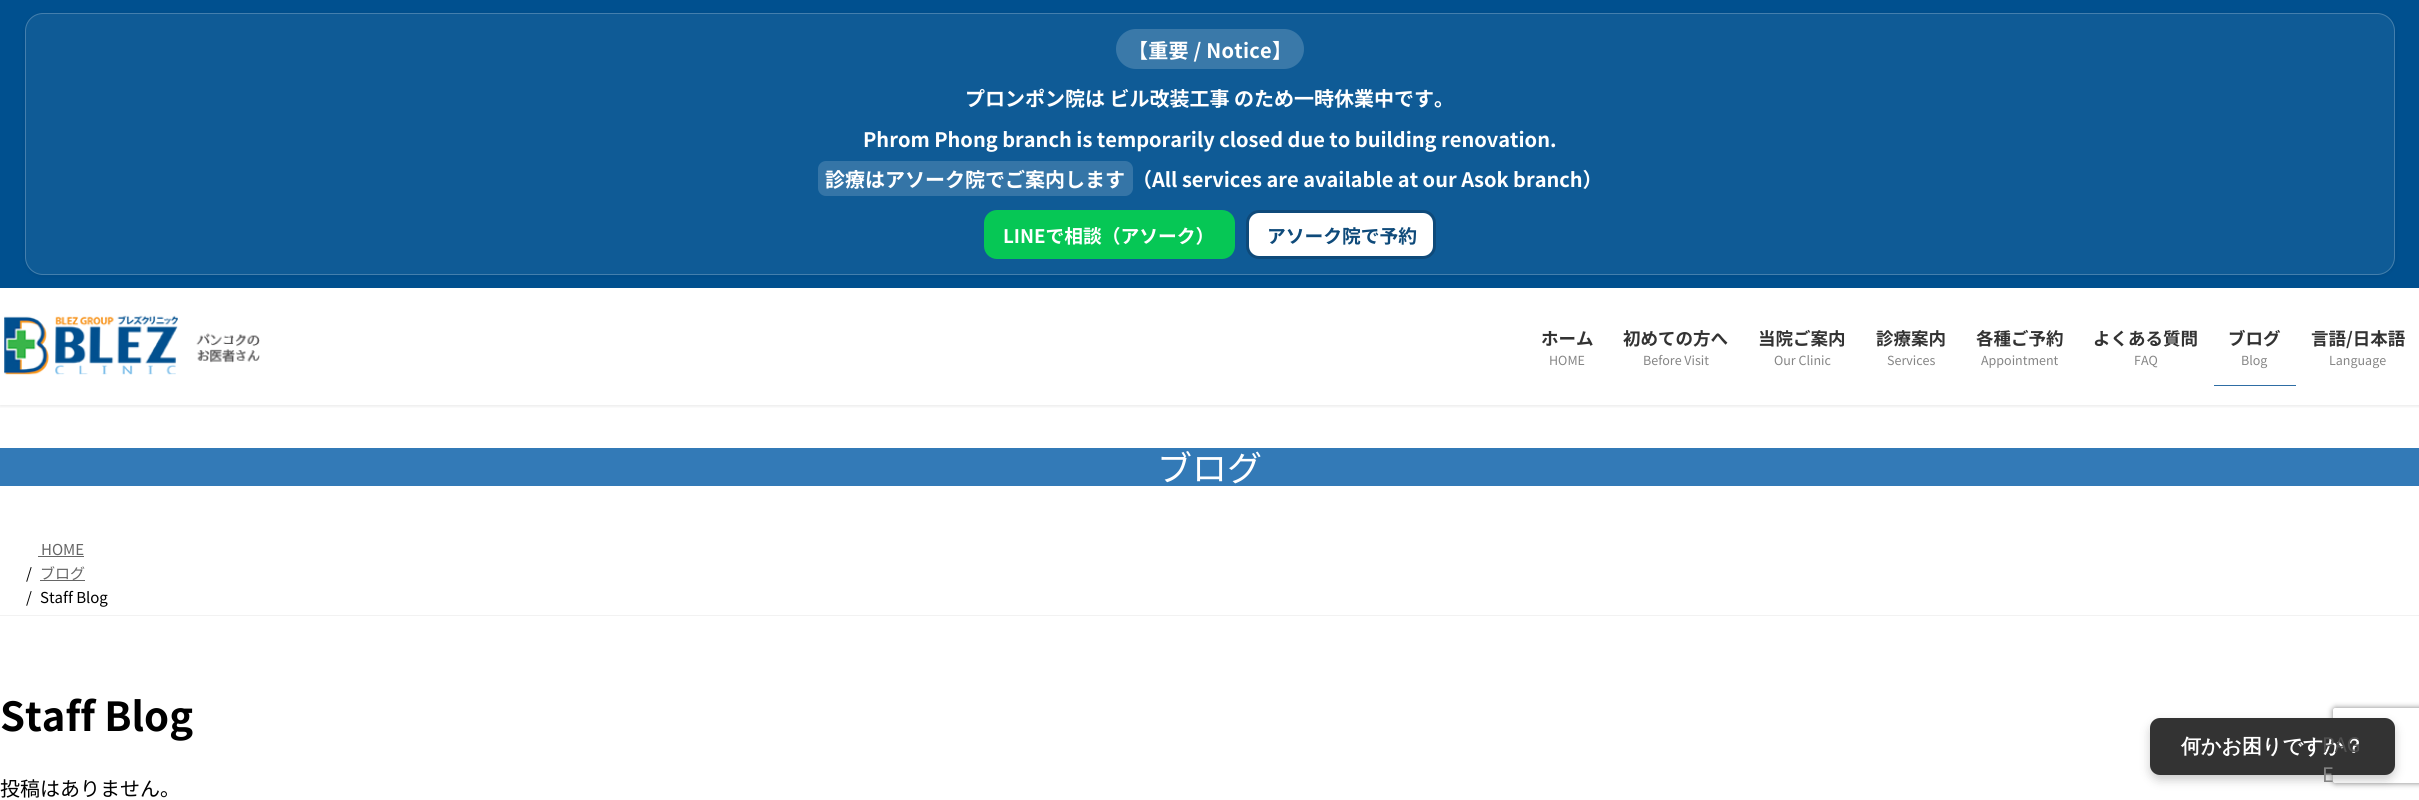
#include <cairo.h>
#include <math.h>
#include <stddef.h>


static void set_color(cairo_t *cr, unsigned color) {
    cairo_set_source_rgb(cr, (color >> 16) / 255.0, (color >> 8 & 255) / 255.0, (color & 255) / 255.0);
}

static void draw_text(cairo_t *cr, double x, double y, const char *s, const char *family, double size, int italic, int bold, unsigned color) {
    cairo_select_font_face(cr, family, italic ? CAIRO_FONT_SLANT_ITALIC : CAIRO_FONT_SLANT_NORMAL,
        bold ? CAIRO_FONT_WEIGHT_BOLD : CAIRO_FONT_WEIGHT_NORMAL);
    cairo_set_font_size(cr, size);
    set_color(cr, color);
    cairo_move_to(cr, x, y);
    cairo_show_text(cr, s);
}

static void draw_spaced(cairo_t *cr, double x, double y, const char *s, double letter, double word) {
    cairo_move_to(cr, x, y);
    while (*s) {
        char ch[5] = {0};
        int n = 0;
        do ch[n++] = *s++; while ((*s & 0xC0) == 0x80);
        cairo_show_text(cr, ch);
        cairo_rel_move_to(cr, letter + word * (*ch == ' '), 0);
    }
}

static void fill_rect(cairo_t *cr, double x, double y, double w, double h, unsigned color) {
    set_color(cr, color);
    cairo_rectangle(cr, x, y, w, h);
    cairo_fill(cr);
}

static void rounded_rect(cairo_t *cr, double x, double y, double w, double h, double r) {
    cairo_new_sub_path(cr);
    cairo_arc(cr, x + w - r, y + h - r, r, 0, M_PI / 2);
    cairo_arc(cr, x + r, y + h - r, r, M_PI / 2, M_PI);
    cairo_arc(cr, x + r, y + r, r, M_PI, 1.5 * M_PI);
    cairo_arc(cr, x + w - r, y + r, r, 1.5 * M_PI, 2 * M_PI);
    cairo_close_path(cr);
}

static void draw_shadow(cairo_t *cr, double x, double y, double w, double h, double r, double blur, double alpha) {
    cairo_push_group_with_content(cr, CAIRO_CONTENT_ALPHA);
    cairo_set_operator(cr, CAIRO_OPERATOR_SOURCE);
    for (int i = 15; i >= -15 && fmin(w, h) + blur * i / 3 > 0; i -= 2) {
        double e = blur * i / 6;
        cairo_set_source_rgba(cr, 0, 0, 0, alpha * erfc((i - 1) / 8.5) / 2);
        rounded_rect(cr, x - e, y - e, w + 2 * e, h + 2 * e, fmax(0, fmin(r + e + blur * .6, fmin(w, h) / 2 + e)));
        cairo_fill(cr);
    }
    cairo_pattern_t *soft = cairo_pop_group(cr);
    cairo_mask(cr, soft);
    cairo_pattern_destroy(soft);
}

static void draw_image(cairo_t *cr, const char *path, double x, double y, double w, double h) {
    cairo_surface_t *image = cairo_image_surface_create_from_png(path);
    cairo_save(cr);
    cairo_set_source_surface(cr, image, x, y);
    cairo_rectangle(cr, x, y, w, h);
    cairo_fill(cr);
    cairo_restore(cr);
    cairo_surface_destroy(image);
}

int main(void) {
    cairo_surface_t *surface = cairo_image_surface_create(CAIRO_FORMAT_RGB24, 2419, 800);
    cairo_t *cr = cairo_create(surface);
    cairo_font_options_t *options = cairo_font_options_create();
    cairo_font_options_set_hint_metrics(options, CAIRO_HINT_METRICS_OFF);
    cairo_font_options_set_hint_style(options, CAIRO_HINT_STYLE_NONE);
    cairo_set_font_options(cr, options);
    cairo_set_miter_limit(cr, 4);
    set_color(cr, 0xFFFFFF);
    cairo_paint(cr);
    cairo_save(cr);
    cairo_rectangle(cr, 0, 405, 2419, 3);
    cairo_clip(cr);
    set_color(cr, 0x000000);
    draw_shadow(cr, 0, 289, 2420, 117, 0, 2, 0.1);
    cairo_restore(cr);
    fill_rect(cr, 0, 0, 2419, 288, 0x00508F);
    set_color(cr, 0x000000);
    draw_shadow(cr, 25, 14, 2370, 262, 18, 2.5, 0.08);
    set_color(cr, 0x0F5B96);
    rounded_rect(cr, 25, 13, 2370, 262, 18);
    cairo_fill(cr);
    rounded_rect(cr, 25.5, 13.5, 2369, 261, 17.5);
    cairo_set_source_rgba(cr, 1, 1, 1, 0.22);
    cairo_set_line_width(cr, 1);
    cairo_stroke(cr);
    set_color(cr, 0x3A79A9);
    rounded_rect(cr, 1116, 29, 188, 40, 20);
    cairo_fill(cr);
    cairo_select_font_face(cr, "Noto Sans JP", CAIRO_FONT_SLANT_NORMAL, CAIRO_FONT_WEIGHT_BOLD);
    cairo_set_font_size(cr, 20);
    set_color(cr, 0xFFFFFF);
    draw_spaced(cr, 1128, 58, "【重要 / Notice】", 0.25, 0);
    draw_text(cr, 965, 106, "プロンポン院は ビル改装工事 のため一時休業中です。", "Noto Sans JP", 20, 0, 1, 0xFFFFFF);
    draw_text(cr, 863, 147, "Phrom Phong branch is temporarily closed due to building renovation.", "Noto Sans JP", 20, 0, 1, 0xFFFFFF);
    set_color(cr, 0x3575A7);
    rounded_rect(cr, 818, 161, 315, 35, 8);
    cairo_fill(cr);
    draw_text(cr, 825, 187, "診療はアソーク院でご案内します", "Noto Sans JP", 20, 0, 1, 0xFFFFFF);
    draw_text(cr, 1132, 187, "（All services are available at our Asok branch）", "Noto Sans JP", 20, 0, 1, 0xFFFFFF);
    set_color(cr, 0x06C755);
    rounded_rect(cr, 984, 210, 251, 49, 13);
    cairo_fill(cr);
    draw_text(cr, 1003, 243, "LINEで相談（アソーク）", "Noto Sans JP", 18.75, 0, 1, 0xFFFFFF);
    rounded_rect(cr, 1247.5, 211.5, 187, 46, 11.5);
    cairo_fill_preserve(cr);
    set_color(cr, 0x0E4A7A);
    cairo_set_line_width(cr, 3);
    cairo_stroke(cr);
    draw_text(cr, 1267, 243, "アソーク院で予約", "Noto Sans JP", 18.75, 0, 1, 0x0E4A7A);
    draw_image(cr, "assets/img1.png", 4, 315, 256, 60);
    draw_text(cr, 1541, 345, "ホーム", "Noto Sans JP", 17.5, 0, 1, 0x333333);
    draw_text(cr, 1549, 365, "HOME", "Noto Sans JP", 12.5, 0, 0, 0x858585);
    draw_text(cr, 1623, 345, "初めての方へ", "Noto Sans JP", 17.5, 0, 1, 0x333333);
    draw_text(cr, 1643, 365, "Before Visit", "Noto Sans JP", 12.5, 0, 0, 0x858585);
    draw_text(cr, 1758, 345, "当院ご案内", "Noto Sans JP", 17.5, 0, 1, 0x333333);
    draw_text(cr, 1774, 365, "Our Clinic", "Noto Sans JP", 12.5, 0, 0, 0x858585);
    draw_text(cr, 1876, 345, "診療案内", "Noto Sans JP", 17.5, 0, 1, 0x333333);
    draw_text(cr, 1887, 365, "Services", "Noto Sans JP", 12.5, 0, 0, 0x858585);
    draw_text(cr, 1976, 345, "各種ご予約", "Noto Sans JP", 17.5, 0, 1, 0x333333);
    draw_text(cr, 1981, 365, "Appointment", "Noto Sans JP", 12.5, 0, 0, 0x858585);
    draw_text(cr, 2093, 345, "よくある質問", "Noto Sans JP", 17.5, 0, 1, 0x333333);
    draw_text(cr, 2134, 365, "FAQ", "Noto Sans JP", 12.5, 0, 0, 0x858585);
    draw_text(cr, 2228, 345, "ブログ", "Noto Sans JP", 17.5, 0, 1, 0x333333);
    draw_text(cr, 2241, 365, "Blog", "Noto Sans JP", 12.5, 0, 0, 0x858585);
    fill_rect(cr, 2214, 385, 82, 1, 0x2E6DA4);
    draw_text(cr, 2311, 345, "言語/日本語", "Noto Sans JP", 17.5, 0, 1, 0x333333);
    draw_text(cr, 2329, 365, "Language", "Noto Sans JP", 12.5, 0, 0, 0x858585);
    fill_rect(cr, 0, 448, 2419, 38, 0x337AB7);
    draw_text(cr, 1157, 481, "ブログ", "Noto Sans JP", 35, 0, 0, 0xFFFFFF);
    fill_rect(cr, 0, 615, 2419, 1, 0xF2F2F2);
    draw_text(cr, 41, 555, "HOME", "Noto Sans JP", 15, 0, 0, 0x666666);
    fill_rect(cr, 38, 556, 46, 1, 0x666666);
    draw_text(cr, 26, 579, "/", "Noto Sans JP", 15, 0, 0, 0x000000);
    draw_text(cr, 40, 579, "ブログ", "Noto Sans JP", 15, 0, 0, 0x666666);
    fill_rect(cr, 40, 580, 45, 1, 0x666666);
    draw_text(cr, 26, 603, "/", "Noto Sans JP", 15, 0, 0, 0x000000);
    draw_text(cr, 40, 603, "Staff Blog", "Noto Sans JP", 15, 0, 0, 0x000000);
    draw_text(cr, 0, 731, "Staff Blog", "Noto Sans JP", 40, 0, 1, 0x000000);
    draw_text(cr, 0, 796, "投稿はありません。", "Noto Sans JP", 20, 0, 0, 0x000000);
    set_color(cr, 0x000000);
    draw_shadow(cr, 2150, 723, 245, 57, 10, 5, 0.2);
    cairo_save(cr);
    cairo_set_fill_rule(cr, CAIRO_FILL_RULE_EVEN_ODD);
    cairo_new_path(cr);
    cairo_move_to(cr, 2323, 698);
    cairo_line_to(cr, 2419, 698);
    cairo_line_to(cr, 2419, 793);
    cairo_line_to(cr, 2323, 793);
    cairo_close_path(cr);
    cairo_move_to(cr, 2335.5, 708);
    cairo_line_to(cr, 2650.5, 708);
    cairo_curve_to(cr, 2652, 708, 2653, 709, 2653, 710.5);
    cairo_line_to(cr, 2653, 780.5);
    cairo_curve_to(cr, 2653, 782, 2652, 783, 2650.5, 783);
    cairo_line_to(cr, 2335.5, 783);
    cairo_curve_to(cr, 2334, 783, 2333, 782, 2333, 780.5);
    cairo_line_to(cr, 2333, 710.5);
    cairo_curve_to(cr, 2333, 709, 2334, 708, 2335.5, 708);
    cairo_close_path(cr);
    cairo_clip(cr);
    set_color(cr, 0x808080);
    draw_shadow(cr, 2333, 708, 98, 75, 2.5, 3, 1);
    cairo_restore(cr);
    set_color(cr, 0x333333);
    rounded_rect(cr, 2150, 718, 245, 57, 10);
    cairo_fill(cr);
    draw_text(cr, 2181, 753, "何かお困りですか？", "WenQuanYi Zen Hei", 20, 0, 1, 0xFFFFFF);
    draw_text(cr, 2322, 752, "PAG", "Noto Sans JP", 20, 0, 0, 0x505050);
    draw_text(cr, 2322, 782, "E", "Noto Sans JP", 20, 0, 0, 0x858585);
    cairo_surface_write_to_png(surface, "output.png");
    cairo_font_options_destroy(options);
    cairo_destroy(cr);
    cairo_surface_destroy(surface);
    return 0;
}
